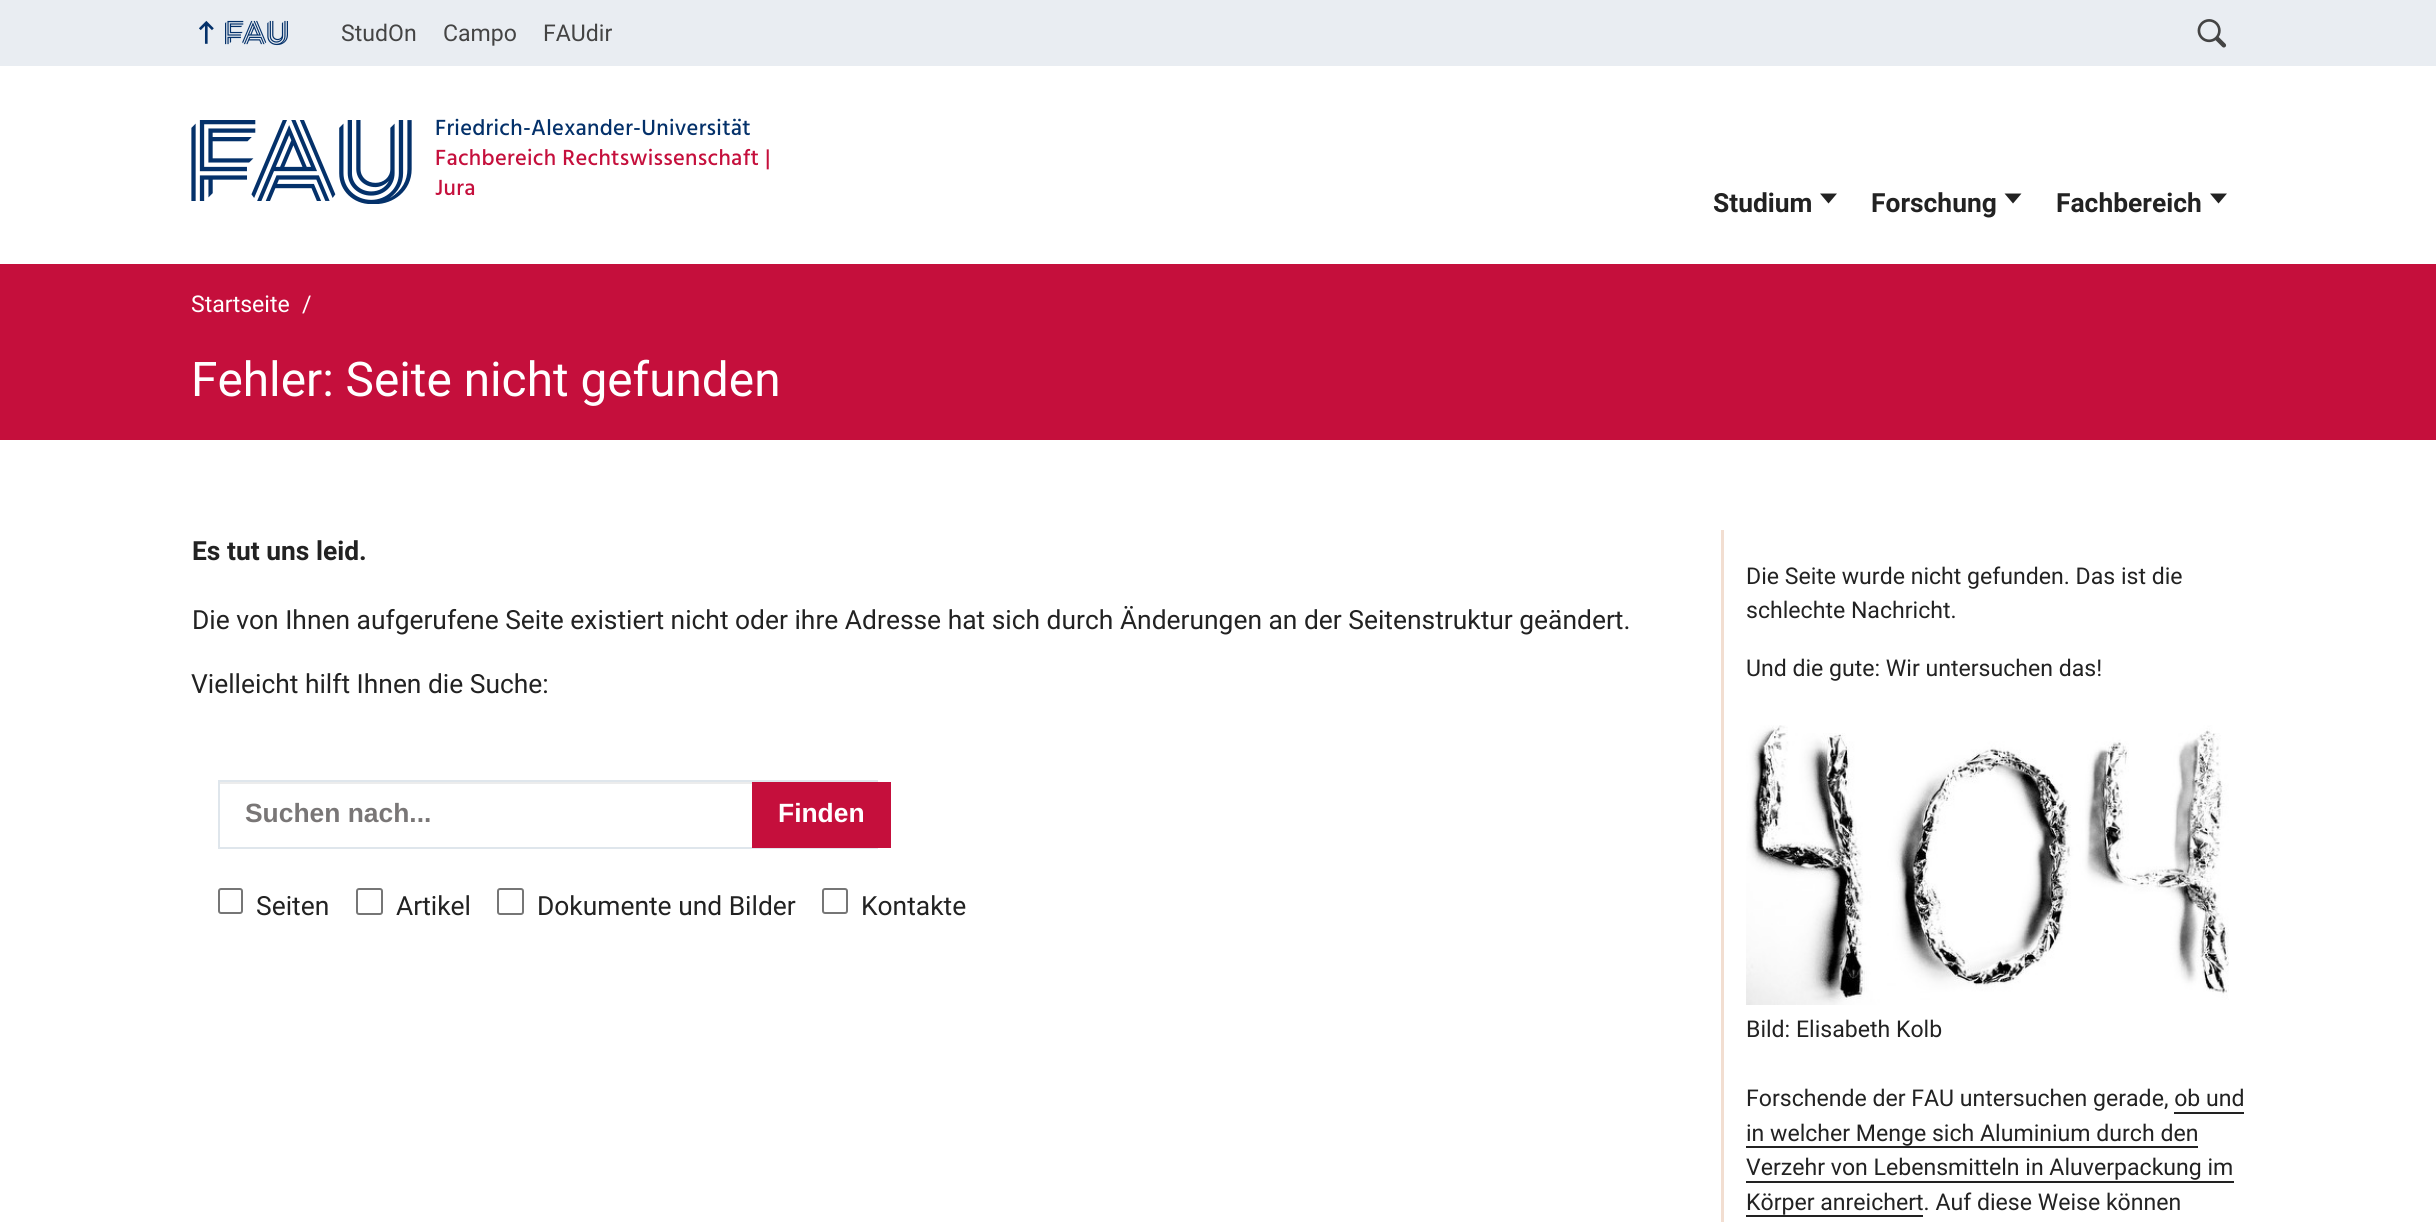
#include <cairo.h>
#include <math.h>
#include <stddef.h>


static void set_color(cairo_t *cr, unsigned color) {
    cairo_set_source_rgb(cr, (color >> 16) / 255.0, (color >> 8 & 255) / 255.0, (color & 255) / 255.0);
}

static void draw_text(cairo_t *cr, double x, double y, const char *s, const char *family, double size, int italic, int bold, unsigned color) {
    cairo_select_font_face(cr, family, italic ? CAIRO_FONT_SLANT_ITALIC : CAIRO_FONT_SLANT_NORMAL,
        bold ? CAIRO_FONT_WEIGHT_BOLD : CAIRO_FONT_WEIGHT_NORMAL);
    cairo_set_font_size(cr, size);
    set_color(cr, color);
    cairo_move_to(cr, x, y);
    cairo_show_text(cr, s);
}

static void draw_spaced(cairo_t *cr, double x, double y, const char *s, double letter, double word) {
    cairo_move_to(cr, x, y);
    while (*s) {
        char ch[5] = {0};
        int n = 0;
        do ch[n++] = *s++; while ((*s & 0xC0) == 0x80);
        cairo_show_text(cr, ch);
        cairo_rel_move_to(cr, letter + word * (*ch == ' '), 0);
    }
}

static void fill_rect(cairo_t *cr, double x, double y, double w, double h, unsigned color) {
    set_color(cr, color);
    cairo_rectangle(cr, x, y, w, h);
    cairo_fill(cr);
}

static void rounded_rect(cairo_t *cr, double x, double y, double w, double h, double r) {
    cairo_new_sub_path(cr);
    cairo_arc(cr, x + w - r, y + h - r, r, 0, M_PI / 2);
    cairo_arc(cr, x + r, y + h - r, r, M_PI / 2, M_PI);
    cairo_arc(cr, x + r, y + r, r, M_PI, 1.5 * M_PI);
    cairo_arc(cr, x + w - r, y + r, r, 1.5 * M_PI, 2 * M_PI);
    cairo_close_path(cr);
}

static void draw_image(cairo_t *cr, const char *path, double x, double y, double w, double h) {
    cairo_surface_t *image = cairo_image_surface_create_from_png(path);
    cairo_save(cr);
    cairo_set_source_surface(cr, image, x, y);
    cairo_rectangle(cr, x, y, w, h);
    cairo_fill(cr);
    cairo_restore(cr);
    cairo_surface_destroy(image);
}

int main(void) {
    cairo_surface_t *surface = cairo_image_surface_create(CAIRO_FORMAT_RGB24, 2436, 1222);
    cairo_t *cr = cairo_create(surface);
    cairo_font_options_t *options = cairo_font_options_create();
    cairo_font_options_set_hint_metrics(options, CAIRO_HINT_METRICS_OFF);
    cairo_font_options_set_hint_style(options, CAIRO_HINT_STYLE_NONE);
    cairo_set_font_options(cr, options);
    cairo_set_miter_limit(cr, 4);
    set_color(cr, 0xFFFFFF);
    cairo_paint(cr);
    fill_rect(cr, 0, 0, 2436, 66, 0xE9EDF2);
    draw_image(cr, "assets/img1.png", 199, 20, 15, 24);
    draw_image(cr, "assets/img2.png", 225, 20, 63, 26);
    draw_text(cr, 341, 41, "StudOn", "Roboto", 23.1, 0, 0, 0x444444);
    draw_text(cr, 443, 41, "Campo", "Roboto", 23.1, 0, 0, 0x444444);
    draw_text(cr, 543, 41, "FAUdir", "Roboto", 23.1, 0, 0, 0x444444);
    draw_image(cr, "assets/img3.png", 2197, 19, 30, 29);
    draw_image(cr, "assets/img4.png", 191, 120, 221, 84);
    cairo_select_font_face(cr, "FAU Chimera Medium", CAIRO_FONT_SLANT_NORMAL, CAIRO_FONT_WEIGHT_NORMAL);
    cairo_set_font_size(cr, 22.5);
    set_color(cr, 0x04316A);
    draw_spaced(cr, 435, 135, "Friedrich-Alexander-Universität", 0.3, 0);
    set_color(cr, 0xC50F3C);
    draw_spaced(cr, 435, 165, "Fachbereich Rechtswissenschaft |", 0.3, 0);
    draw_spaced(cr, 435, 195, "Jura", 0.3, 0);
    draw_text(cr, 1713, 212, "Studium", "Roboto", 26.4, 0, 1, 0x222222);
    cairo_new_path(cr);
    cairo_move_to(cr, 1820, 193.5);
    cairo_line_to(cr, 1828.5, 203.5);
    cairo_line_to(cr, 1837, 193.5);
    cairo_close_path(cr);
    cairo_fill(cr);
    draw_text(cr, 1871, 212, "Forschung", "Roboto", 26.4, 0, 1, 0x222222);
    cairo_new_path(cr);
    cairo_move_to(cr, 2004.5, 193.5);
    cairo_line_to(cr, 2013, 203.5);
    cairo_line_to(cr, 2021.5, 193.5);
    cairo_close_path(cr);
    cairo_fill(cr);
    draw_text(cr, 2056, 212, "Fachbereich", "Roboto", 26.4, 0, 1, 0x222222);
    cairo_new_path(cr);
    cairo_move_to(cr, 2210, 193.5);
    cairo_line_to(cr, 2218.5, 203.5);
    cairo_line_to(cr, 2227, 193.5);
    cairo_close_path(cr);
    cairo_fill(cr);
    fill_rect(cr, 0, 264, 2436, 176, 0xC50F3C);
    draw_text(cr, 191, 312, "Startseite", "Roboto", 23.1, 0, 0, 0xFFFFFF);
    draw_text(cr, 302, 312, "/", "Roboto", 23.1, 0, 0, 0xFFFFFF);
    draw_text(cr, 191, 396, "Fehler: Seite nicht gefunden", "Roboto", 47.8, 0, 0, 0xFFFFFF);
    draw_text(cr, 192, 560, "Es tut uns leid.", "Roboto", 26.4, 0, 1, 0x222222);
    draw_text(cr, 192, 629, "Die von Ihnen aufgerufene Seite existiert nicht oder ihre Adresse hat sich durch Änderungen an der Seitenstruktur geändert.", "Roboto", 26.4, 0, 0, 0x222222);
    draw_text(cr, 191, 693, "Vielleicht hilft Ihnen die Suche:", "Roboto", 26.4, 0, 0, 0x222222);
    fill_rect(cr, 219, 782, 533, 2, 0xECECEC);
    cairo_rectangle(cr, 219, 781, 658, 67);
    set_color(cr, 0xDFE6EC);
    cairo_stroke(cr);
    draw_text(cr, 245, 822, "Suchen nach...", "Liberation Sans", 26.4, 0, 1, 0x797676);
    fill_rect(cr, 752, 782, 139, 66, 0xC50F3C);
    draw_text(cr, 778, 822, "Finden", "Liberation Sans", 26.4, 0, 1, 0xFFFFFF);
    rounded_rect(cr, 219, 889, 23, 24, 2);
    set_color(cr, 0x767676);
    cairo_stroke(cr);
    draw_text(cr, 256, 915, "Seiten", "Roboto", 26.4, 0, 0, 0x222222);
    rounded_rect(cr, 357, 889, 25, 25, 2);
    set_color(cr, 0x767676);
    cairo_stroke(cr);
    draw_text(cr, 396, 915, "Artikel", "Roboto", 26.4, 0, 0, 0x222222);
    rounded_rect(cr, 498, 889, 25, 25, 2);
    set_color(cr, 0x767676);
    cairo_stroke(cr);
    draw_text(cr, 537, 915, "Dokumente und Bilder", "Roboto", 26.4, 0, 0, 0x222222);
    rounded_rect(cr, 823, 889, 24, 24, 2);
    set_color(cr, 0x767676);
    cairo_stroke(cr);
    draw_text(cr, 861, 915, "Kontakte", "Roboto", 26.4, 0, 0, 0x222222);
    fill_rect(cr, 1721, 530, 3, 692, 0xF2DED1);
    draw_text(cr, 1746, 584, "Die Seite wurde nicht gefunden. Das ist die", "Roboto", 23.1, 0, 0, 0x222222);
    draw_text(cr, 1746, 618, "schlechte Nachricht.", "Roboto", 23.1, 0, 0, 0x222222);
    draw_text(cr, 1746, 676, "Und die gute: Wir untersuchen das!", "Roboto", 23.1, 0, 0, 0x222222);
    draw_image(cr, "assets/img5.png", 1746, 725, 483, 280);
    draw_text(cr, 1746, 1037, "Bild: Elisabeth Kolb", "Roboto", 23.1, 0, 0, 0x222222);
    draw_text(cr, 1746, 1106, "Forschende der FAU untersuchen gerade, ob und", "Roboto", 23.1, 0, 0, 0x222222);
    draw_text(cr, 1746, 1141, "in welcher Menge sich Aluminium durch den", "Roboto", 23.1, 0, 0, 0x222222);
    fill_rect(cr, 2174, 1112, 70, 2, 0x222222);
    fill_rect(cr, 1746, 1146, 452, 2, 0x222222);
    draw_text(cr, 1746, 1175, "Verzehr von Lebensmitteln in Aluverpackung im", "Roboto", 23.1, 0, 0, 0x222222);
    fill_rect(cr, 1746, 1181, 488, 2, 0x222222);
    draw_text(cr, 1746, 1210, "Körper anreichert. Auf diese Weise können", "Roboto", 23.1, 0, 0, 0x222222);
    fill_rect(cr, 1746, 1215, 177, 2, 0x222222);
    cairo_surface_write_to_png(surface, "output.png");
    cairo_font_options_destroy(options);
    cairo_destroy(cr);
    cairo_surface_destroy(surface);
    return 0;
}
